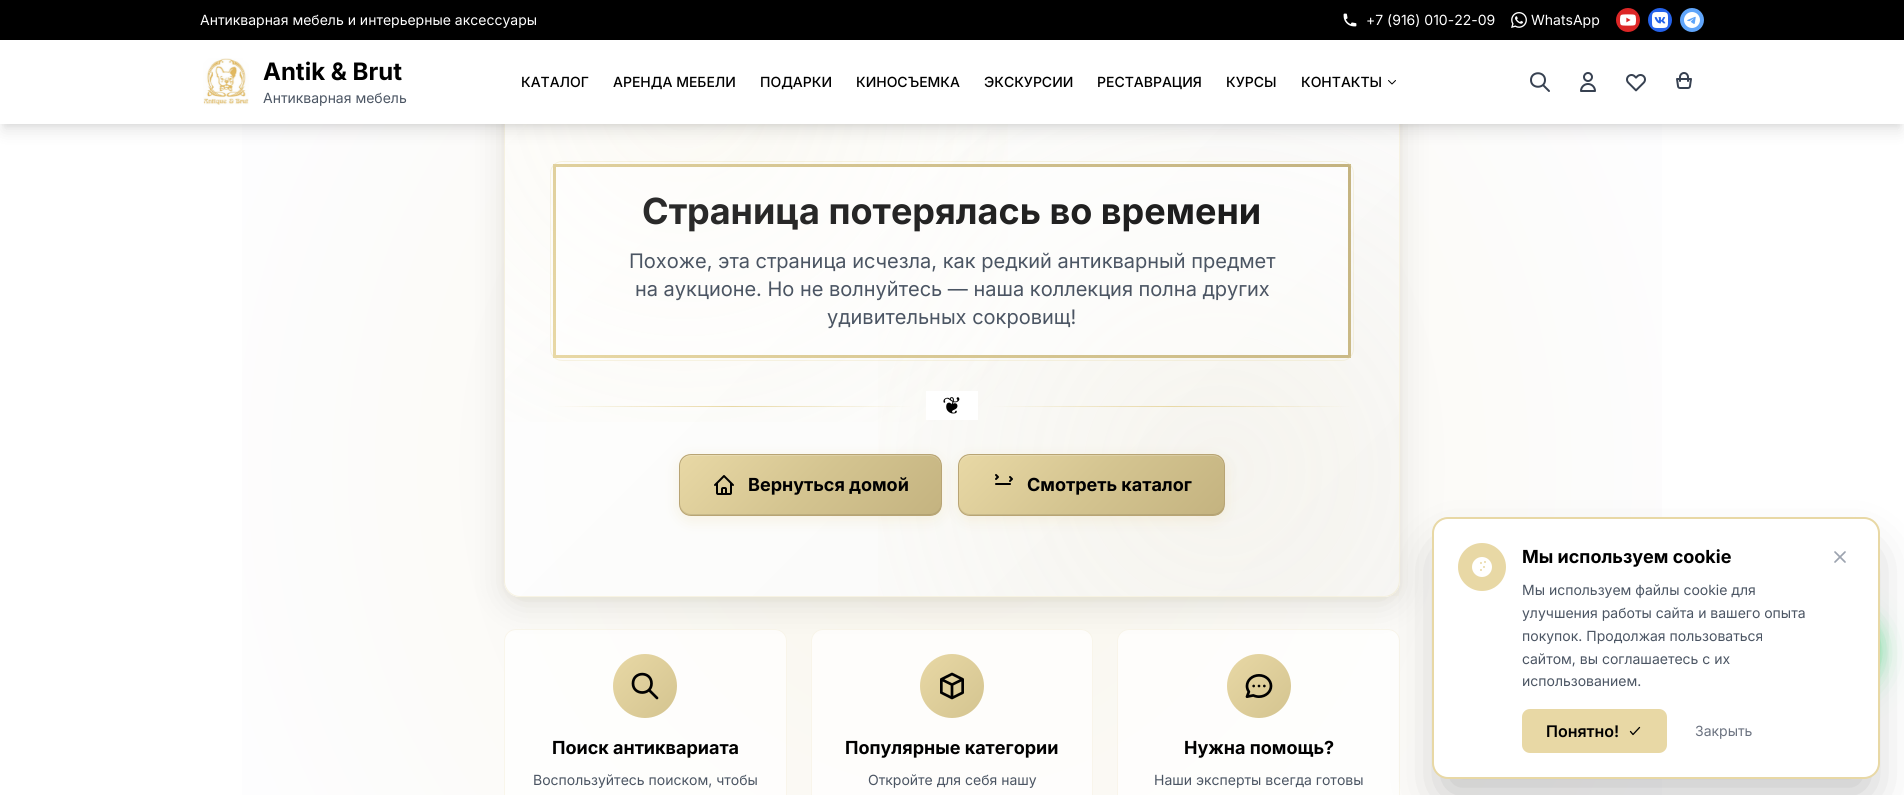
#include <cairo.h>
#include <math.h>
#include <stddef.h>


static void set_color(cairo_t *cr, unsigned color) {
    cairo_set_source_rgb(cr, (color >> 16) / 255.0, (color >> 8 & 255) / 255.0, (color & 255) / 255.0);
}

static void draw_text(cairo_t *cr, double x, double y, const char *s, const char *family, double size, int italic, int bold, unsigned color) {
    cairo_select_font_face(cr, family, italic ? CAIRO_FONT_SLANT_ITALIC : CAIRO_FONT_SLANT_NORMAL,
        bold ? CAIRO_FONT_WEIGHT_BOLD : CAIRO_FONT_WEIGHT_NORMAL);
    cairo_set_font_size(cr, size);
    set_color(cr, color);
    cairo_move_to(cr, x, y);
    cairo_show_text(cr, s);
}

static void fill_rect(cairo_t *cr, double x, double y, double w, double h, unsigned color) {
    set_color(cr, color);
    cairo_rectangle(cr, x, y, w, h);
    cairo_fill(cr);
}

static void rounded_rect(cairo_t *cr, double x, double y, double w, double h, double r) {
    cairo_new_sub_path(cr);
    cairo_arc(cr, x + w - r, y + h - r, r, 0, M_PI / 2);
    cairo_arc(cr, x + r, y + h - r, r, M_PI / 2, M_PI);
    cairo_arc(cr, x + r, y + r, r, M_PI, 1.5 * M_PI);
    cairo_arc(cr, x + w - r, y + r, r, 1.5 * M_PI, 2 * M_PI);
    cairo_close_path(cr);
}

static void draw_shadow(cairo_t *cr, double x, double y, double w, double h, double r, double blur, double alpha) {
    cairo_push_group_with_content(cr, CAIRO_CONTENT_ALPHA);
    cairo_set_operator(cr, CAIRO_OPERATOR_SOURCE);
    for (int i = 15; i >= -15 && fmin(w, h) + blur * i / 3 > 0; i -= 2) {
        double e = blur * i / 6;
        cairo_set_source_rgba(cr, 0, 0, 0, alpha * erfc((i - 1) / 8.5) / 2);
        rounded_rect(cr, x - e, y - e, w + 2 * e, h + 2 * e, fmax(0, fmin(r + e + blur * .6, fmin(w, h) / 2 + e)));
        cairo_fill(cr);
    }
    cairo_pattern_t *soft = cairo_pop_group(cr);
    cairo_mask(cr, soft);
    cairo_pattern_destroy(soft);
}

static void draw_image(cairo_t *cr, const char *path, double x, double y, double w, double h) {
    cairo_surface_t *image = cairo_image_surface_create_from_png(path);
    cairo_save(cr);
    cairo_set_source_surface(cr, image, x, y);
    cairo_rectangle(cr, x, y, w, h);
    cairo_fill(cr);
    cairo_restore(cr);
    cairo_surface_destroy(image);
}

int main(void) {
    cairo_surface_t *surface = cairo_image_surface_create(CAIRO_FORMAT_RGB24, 1904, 795);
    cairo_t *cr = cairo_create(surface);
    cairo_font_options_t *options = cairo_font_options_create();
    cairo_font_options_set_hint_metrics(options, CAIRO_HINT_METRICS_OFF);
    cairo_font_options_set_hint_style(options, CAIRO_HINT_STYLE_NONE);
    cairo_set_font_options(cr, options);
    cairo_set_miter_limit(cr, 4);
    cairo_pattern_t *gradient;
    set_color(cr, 0xFFFFFF);
    cairo_paint(cr);
    gradient = cairo_pattern_create_radial(952, 467, 0, 952, 467, 1096);
    cairo_pattern_add_color_stop_rgba(gradient, 0, 0.976, 0.965, 0.925, 1);
    cairo_pattern_add_color_stop_rgba(gradient, 0.7, 0.992, 0.992, 0.996, 1);
    cairo_set_source(cr, gradient);
    cairo_pattern_destroy(gradient);
    cairo_rectangle(cr, 242, 124, 1420, 671);
    cairo_fill(cr);
    cairo_save(cr);
    cairo_set_fill_rule(cr, CAIRO_FILL_RULE_EVEN_ODD);
    cairo_new_path(cr);
    cairo_move_to(cr, 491, 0);
    cairo_line_to(cr, 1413, 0);
    cairo_line_to(cr, 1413, 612);
    cairo_line_to(cr, 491, 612);
    cairo_close_path(cr);
    cairo_move_to(cr, 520, -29);
    cairo_line_to(cr, 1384, -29);
    cairo_curve_to(cr, 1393, -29, 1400, -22, 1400, -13);
    cairo_line_to(cr, 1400, 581);
    cairo_curve_to(cr, 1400, 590, 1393, 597, 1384, 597);
    cairo_line_to(cr, 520, 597);
    cairo_curve_to(cr, 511, 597, 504, 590, 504, 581);
    cairo_line_to(cr, 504, -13);
    cairo_curve_to(cr, 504, -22, 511, -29, 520, -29);
    cairo_close_path(cr);
    cairo_clip(cr);
    set_color(cr, 0xE8D8A5);
    draw_shadow(cr, 504, -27, 896, 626, 16, 4, 0.2);
    cairo_restore(cr);
    cairo_set_source_rgba(cr, 1, 1, 1, 0.7);
    rounded_rect(cr, 504, 629, 283, 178, 12);
    cairo_fill(cr);
    rounded_rect(cr, 504.5, 629.5, 282, 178, 11.5);
    cairo_set_source_rgba(cr, 0.91, 0.847, 0.647, 0.2);
    cairo_set_line_width(cr, 1);
    cairo_stroke(cr);
    cairo_set_source_rgba(cr, 1, 1, 1, 0.7);
    rounded_rect(cr, 811, 629, 282, 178, 12);
    cairo_fill(cr);
    rounded_rect(cr, 811.5, 629.5, 281, 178, 11.5);
    cairo_set_source_rgba(cr, 0.91, 0.847, 0.647, 0.2);
    cairo_stroke(cr);
    cairo_set_source_rgba(cr, 1, 1, 1, 0.7);
    rounded_rect(cr, 1117, 629, 283, 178, 12);
    cairo_fill(cr);
    rounded_rect(cr, 1117.5, 629.5, 282, 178, 11.5);
    cairo_set_source_rgba(cr, 0.91, 0.847, 0.647, 0.2);
    cairo_stroke(cr);
    cairo_save(cr);
    cairo_set_fill_rule(cr, CAIRO_FILL_RULE_EVEN_ODD);
    cairo_new_path(cr);
    cairo_move_to(cr, 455, 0);
    cairo_line_to(cr, 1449, 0);
    cairo_line_to(cr, 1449, 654);
    cairo_line_to(cr, 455, 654);
    cairo_close_path(cr);
    cairo_move_to(cr, 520, -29);
    cairo_line_to(cr, 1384, -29);
    cairo_curve_to(cr, 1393, -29, 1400, -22, 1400, -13);
    cairo_line_to(cr, 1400, 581);
    cairo_curve_to(cr, 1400, 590, 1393, 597, 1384, 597);
    cairo_line_to(cr, 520, 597);
    cairo_curve_to(cr, 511, 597, 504, 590, 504, 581);
    cairo_line_to(cr, 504, -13);
    cairo_curve_to(cr, 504, -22, 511, -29, 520, -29);
    cairo_close_path(cr);
    cairo_clip(cr);
    set_color(cr, 0x000000);
    draw_shadow(cr, 504, -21, 896, 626, 16, 16, 0.1);
    cairo_restore(cr);
    cairo_save(cr);
    rounded_rect(cr, 504, -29, 896, 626, 16);
    cairo_clip(cr);
    gradient = cairo_pattern_create_linear(-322, -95, 438, 664);
    cairo_pattern_add_color_stop_rgba(gradient, 0, 1, 1, 1, 0.95);
    cairo_pattern_add_color_stop_rgba(gradient, 1, 0.973, 0.973, 0.973, 0.95);
    cairo_set_source(cr, gradient);
    cairo_pattern_destroy(gradient);
    cairo_rectangle(cr, 504, 124, 1, 463);
    cairo_fill(cr);
    gradient = cairo_pattern_create_linear(573, -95, 1332, 664);
    cairo_pattern_add_color_stop_rgba(gradient, 0, 1, 1, 1, 0.95);
    cairo_pattern_add_color_stop_rgba(gradient, 1, 0.973, 0.973, 0.973, 0.95);
    cairo_set_source(cr, gradient);
    cairo_pattern_destroy(gradient);
    cairo_rectangle(cr, 505, 124, 894, 472);
    cairo_fill(cr);
    gradient = cairo_pattern_create_linear(1467, -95, 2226, 664);
    cairo_pattern_add_color_stop_rgba(gradient, 0, 1, 1, 1, 0.95);
    cairo_pattern_add_color_stop_rgba(gradient, 1, 0.973, 0.973, 0.973, 0.95);
    cairo_set_source(cr, gradient);
    cairo_pattern_destroy(gradient);
    cairo_rectangle(cr, 1399, 124, 1, 463);
    cairo_fill(cr);
    gradient = cairo_pattern_create_linear(573, 529, 1332, 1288);
    cairo_pattern_add_color_stop_rgba(gradient, 0, 1, 1, 1, 0.95);
    cairo_pattern_add_color_stop_rgba(gradient, 1, 0.973, 0.973, 0.973, 0.95);
    cairo_set_source(cr, gradient);
    cairo_pattern_destroy(gradient);
    cairo_rectangle(cr, 514, 596, 876, 1);
    cairo_fill(cr);
    cairo_restore(cr);
    rounded_rect(cr, 504.5, -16.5, 895, 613, 15.5);
    cairo_set_source_rgba(cr, 0.91, 0.847, 0.647, 0.3);
    cairo_stroke(cr);
    gradient = cairo_pattern_create_radial(1220, 471, 0, 1220, 471, 872);
    cairo_pattern_add_color_stop_rgba(gradient, 0, 0.831, 0.769, 0.565, 0.1);
    cairo_pattern_add_color_stop_rgba(gradient, 0.5, 0.831, 0.769, 0.565, 0);
    cairo_set_source(cr, gradient);
    cairo_pattern_destroy(gradient);
    cairo_rectangle(cr, 878, 129, 521, 467);
    cairo_fill(cr);
    gradient = cairo_pattern_create_radial(684, 97, 0, 684, 97, 872);
    cairo_pattern_add_color_stop_rgba(gradient, 0, 0.91, 0.847, 0.647, 0.1);
    cairo_pattern_add_color_stop_rgba(gradient, 0.5, 0.91, 0.847, 0.647, 0);
    cairo_set_source(cr, gradient);
    cairo_pattern_destroy(gradient);
    cairo_rectangle(cr, 505, 124, 503, 298);
    cairo_fill(cr);
    set_color(cr, 0x000000);
    draw_shadow(cr, 4, 8, 1896, 116, 0, 3, 0.1);
    draw_shadow(cr, 3, 13, 1898, 118, 0, 7.5, 0.1);
    fill_rect(cr, 0, 40, 1904, 84, 0xFFFFFF);
    fill_rect(cr, 0, 0, 1904, 40, 0x000000);
    draw_text(cr, 200, 25, "Антикварная мебель и интерьерные аксессуары", "Inter", 14, 0, 0, 0xFFFFFF);
    draw_image(cr, "assets/img1.png", 1343, 13, 14, 14);
    draw_text(cr, 1366, 25, "+7 (916) 010-22-09", "Inter", 14, 0, 0, 0xFFFFFF);
    draw_image(cr, "assets/img2.png", 1511, 12, 16, 16);
    draw_text(cr, 1531, 25, "WhatsApp", "Inter", 14, 0, 0, 0xFFFFFF);
    set_color(cr, 0xDC2626);
    cairo_new_path(cr);
    cairo_arc(cr, 1628, 20, 12, 0, 2 * M_PI);
    cairo_fill(cr);
    draw_image(cr, "assets/img3.png", 1620, 14, 16, 12);
    set_color(cr, 0x2563EB);
    cairo_arc(cr, 1660, 20, 12, 0, 2 * M_PI);
    cairo_fill(cr);
    draw_image(cr, "assets/img4.png", 1652, 12, 16, 16);
    set_color(cr, 0x60A5FA);
    cairo_arc(cr, 1692, 20, 12, 0, 2 * M_PI);
    cairo_fill(cr);
    draw_image(cr, "assets/img5.png", 1684, 12, 16, 16);
    draw_image(cr, "assets/img6.png", 203, 58, 46, 47);
    draw_text(cr, 263, 80, "Antik & Brut", "Inter", 24, 0, 1, 0x000000);
    draw_text(cr, 263, 103, "Антикварная мебель", "Inter", 14, 0, 0, 0x4B5563);
    draw_text(cr, 521, 87, "КАТАЛОГ", "Inter Medium", 14, 0, 0, 0x000000);
    draw_text(cr, 613, 87, "АРЕНДА МЕБЕЛИ", "Inter Medium", 14, 0, 0, 0x000000);
    draw_text(cr, 760, 87, "ПОДАРКИ", "Inter Medium", 14, 0, 0, 0x000000);
    draw_text(cr, 856, 87, "КИНОСЪЕМКА", "Inter Medium", 14, 0, 0, 0x000000);
    draw_text(cr, 984, 87, "ЭКСКУРСИИ", "Inter Medium", 14, 0, 0, 0x000000);
    draw_text(cr, 1097, 87, "РЕСТАВРАЦИЯ", "Inter Medium", 14, 0, 0, 0x000000);
    draw_text(cr, 1226, 87, "КУРСЫ", "Inter Medium", 14, 0, 0, 0x000000);
    draw_text(cr, 1301, 87, "КОНТАКТЫ", "Inter Medium", 14, 0, 0, 0x000000);
    cairo_new_path(cr);
    cairo_move_to(cr, 1395.5, 80.5);
    cairo_line_to(cr, 1392, 84);
    cairo_line_to(cr, 1388.5, 80.5);
    cairo_set_line_cap(cr, CAIRO_LINE_CAP_ROUND);
    cairo_set_line_join(cr, CAIRO_LINE_JOIN_ROUND);
    cairo_stroke(cr);
    cairo_new_path(cr);
    cairo_move_to(cr, 1549, 91);
    cairo_line_to(cr, 1543, 85);
    cairo_move_to(cr, 1545, 80);
    cairo_curve_to(cr, 1545, 89, 1531, 89, 1531, 80);
    cairo_curve_to(cr, 1531, 71, 1545, 71, 1545, 80);
    cairo_close_path(cr);
    set_color(cr, 0x374151);
    cairo_set_line_width(cr, 2);
    cairo_stroke(cr);
    draw_image(cr, "assets/img7.png", 1580, 72, 16, 20);
    draw_image(cr, "assets/img8.png", 1626, 74, 20, 18);
    draw_image(cr, "assets/img9.png", 1676, 72, 16, 17);
    cairo_set_source_rgba(cr, 1, 1, 1, 0.5);
    cairo_rectangle(cr, 556, 167, 792, 188);
    cairo_fill(cr);
    draw_image(cr, "assets/img10.png", 553, 164, 798, 194);
    rounded_rect(cr, 550.5, 161.5, 803, 199, 11.5);
    cairo_set_source_rgba(cr, 0.91, 0.847, 0.647, 0.3);
    cairo_set_line_width(cr, 1);
    cairo_set_line_cap(cr, CAIRO_LINE_CAP_BUTT);
    cairo_set_line_join(cr, CAIRO_LINE_JOIN_MITER);
    cairo_stroke(cr);
    cairo_select_font_face(cr, "Inter", CAIRO_FONT_SLANT_NORMAL, CAIRO_FONT_WEIGHT_BOLD);
    cairo_set_font_size(cr, 36);
    gradient = cairo_pattern_create_linear(756, 15, 1148, 407);
    cairo_pattern_add_color_stop_rgba(gradient, 0, 0.176, 0.176, 0.176, 1);
    cairo_pattern_add_color_stop_rgba(gradient, 1, 0.102, 0.102, 0.102, 1);
    cairo_set_source(cr, gradient);
    cairo_pattern_destroy(gradient);
    cairo_move_to(cr, 642, 224);
    cairo_show_text(cr, "Страница потерялась во времени");
    draw_text(cr, 629, 268, "Похоже, эта страница исчезла, как редкий антикварный предмет", "Inter", 20, 0, 0, 0x4B5563);
    draw_text(cr, 635, 296, "на аукционе. Но не волнуйтесь — наша коллекция полна других", "Inter", 20, 0, 0, 0x4B5563);
    draw_text(cr, 827, 324, "удивительных сокровищ!", "Inter", 20, 0, 0, 0x4B5563);
    gradient = cairo_pattern_create_linear(553, 407, 912, 407);
    cairo_pattern_add_color_stop_rgba(gradient, 0, 0.91, 0.847, 0.647, 0);
    cairo_pattern_add_color_stop_rgba(gradient, 0.5, 0.91, 0.847, 0.647, 1);
    cairo_pattern_add_color_stop_rgba(gradient, 1, 0.91, 0.847, 0.647, 0);
    cairo_set_source(cr, gradient);
    cairo_pattern_destroy(gradient);
    cairo_rectangle(cr, 553, 406, 359, 1);
    cairo_fill(cr);
    fill_rect(cr, 926, 391, 52, 29, 0xFFFFFF);
    draw_text(cr, 942, 414, "❦", "DejaVu Sans", 24, 0, 0, 0x000000);
    gradient = cairo_pattern_create_linear(992, 407, 1351, 407);
    cairo_pattern_add_color_stop_rgba(gradient, 0, 0.91, 0.847, 0.647, 0);
    cairo_pattern_add_color_stop_rgba(gradient, 0.5, 0.91, 0.847, 0.647, 1);
    cairo_pattern_add_color_stop_rgba(gradient, 1, 0.91, 0.847, 0.647, 0);
    cairo_set_source(cr, gradient);
    cairo_pattern_destroy(gradient);
    cairo_rectangle(cr, 992, 406, 359, 1);
    cairo_fill(cr);
    set_color(cr, 0xE8D8A5);
    draw_shadow(cr, 679, 458, 263, 62, 12, 7.5, 0.3);
    cairo_save(cr);
    rounded_rect(cr, 679, 454, 263, 62, 12);
    cairo_clip(cr);
    gradient = cairo_pattern_create_linear(730, 405, 891, 565);
    cairo_pattern_add_color_stop_rgba(gradient, 0, 0.91, 0.847, 0.647, 1);
    cairo_pattern_add_color_stop_rgba(gradient, 0.5, 0.831, 0.769, 0.565, 1);
    cairo_pattern_add_color_stop_rgba(gradient, 1, 0.769, 0.702, 0.502, 1);
    cairo_set_source(cr, gradient);
    cairo_pattern_destroy(gradient);
    cairo_rectangle(cr, 680, 455, 261, 60);
    cairo_fill(cr);
    cairo_restore(cr);
    cairo_set_source_rgba(cr, 0, 0, 0, 0.1);
    cairo_new_path(cr);
    cairo_move_to(cr, 680, 503);
    cairo_line_to(cr, 680, 504);
    cairo_curve_to(cr, 680, 510, 685, 515, 691, 515);
    cairo_line_to(cr, 930, 515);
    cairo_curve_to(cr, 936, 515, 941, 510, 941, 504);
    cairo_line_to(cr, 941, 503);
    cairo_curve_to(cr, 941, 509, 936, 514, 930, 514);
    cairo_line_to(cr, 691, 514);
    cairo_curve_to(cr, 685, 514, 680, 509, 680, 503);
    cairo_close_path(cr);
    cairo_fill(cr);
    cairo_set_source_rgba(cr, 1, 1, 1, 0.2);
    cairo_new_path(cr);
    cairo_move_to(cr, 691, 456);
    cairo_line_to(cr, 930, 456);
    cairo_curve_to(cr, 936, 456, 941, 461, 941, 467);
    cairo_line_to(cr, 941, 466);
    cairo_curve_to(cr, 941, 460, 936, 455, 930, 455);
    cairo_line_to(cr, 691, 455);
    cairo_curve_to(cr, 685, 455, 680, 460, 680, 466);
    cairo_line_to(cr, 680, 467);
    cairo_curve_to(cr, 680, 461, 685, 456, 691, 456);
    cairo_close_path(cr);
    cairo_fill(cr);
    rounded_rect(cr, 679.5, 454.5, 262, 61, 11.5);
    set_color(cr, 0xB8A474);
    cairo_stroke(cr);
    draw_image(cr, "assets/img11.png", 714, 475, 20, 20);
    draw_text(cr, 748, 491, "Вернуться домой", "Inter", 18, 0, 1, 0x000000);
    set_color(cr, 0xE8D8A5);
    draw_shadow(cr, 958, 458, 267, 62, 12, 7.5, 0.3);
    cairo_save(cr);
    rounded_rect(cr, 958, 454, 267, 62, 12);
    cairo_clip(cr);
    gradient = cairo_pattern_create_linear(1010, 404, 1173, 566);
    cairo_pattern_add_color_stop_rgba(gradient, 0, 0.91, 0.847, 0.647, 1);
    cairo_pattern_add_color_stop_rgba(gradient, 0.5, 0.831, 0.769, 0.565, 1);
    cairo_pattern_add_color_stop_rgba(gradient, 1, 0.769, 0.702, 0.502, 1);
    cairo_set_source(cr, gradient);
    cairo_pattern_destroy(gradient);
    cairo_rectangle(cr, 959, 455, 265, 60);
    cairo_fill(cr);
    cairo_restore(cr);
    cairo_set_source_rgba(cr, 0, 0, 0, 0.1);
    cairo_new_path(cr);
    cairo_move_to(cr, 959, 503);
    cairo_line_to(cr, 959, 504);
    cairo_curve_to(cr, 959, 510, 964, 515, 970, 515);
    cairo_line_to(cr, 1213, 515);
    cairo_curve_to(cr, 1219, 515, 1224, 510, 1224, 504);
    cairo_line_to(cr, 1224, 503);
    cairo_curve_to(cr, 1224, 509, 1219, 514, 1213, 514);
    cairo_line_to(cr, 970, 514);
    cairo_curve_to(cr, 964, 514, 959, 509, 959, 503);
    cairo_close_path(cr);
    cairo_fill(cr);
    cairo_set_source_rgba(cr, 1, 1, 1, 0.2);
    cairo_new_path(cr);
    cairo_move_to(cr, 970, 456);
    cairo_line_to(cr, 1213, 456);
    cairo_curve_to(cr, 1219, 456, 1224, 461, 1224, 467);
    cairo_line_to(cr, 1224, 466);
    cairo_curve_to(cr, 1224, 460, 1219, 455, 1213, 455);
    cairo_line_to(cr, 970, 455);
    cairo_curve_to(cr, 964, 455, 959, 460, 959, 466);
    cairo_line_to(cr, 959, 467);
    cairo_curve_to(cr, 959, 461, 964, 456, 970, 456);
    cairo_close_path(cr);
    cairo_fill(cr);
    rounded_rect(cr, 958.5, 454.5, 266, 61, 11.5);
    set_color(cr, 0xB8A474);
    cairo_stroke(cr);
    cairo_new_path(cr);
    cairo_move_to(cr, 1010, 484);
    cairo_line_to(cr, 996, 484);
    cairo_move_to(cr, 1010, 477);
    cairo_line_to(cr, 1012, 479);
    cairo_line_to(cr, 1010, 481);
    cairo_move_to(cr, 996, 479);
    cairo_line_to(cr, 998, 477);
    cairo_line_to(cr, 996, 475);
    set_color(cr, 0x000000);
    cairo_set_line_width(cr, 2);
    cairo_set_line_cap(cr, CAIRO_LINE_CAP_ROUND);
    cairo_set_line_join(cr, CAIRO_LINE_JOIN_ROUND);
    cairo_stroke(cr);
    draw_text(cr, 1027, 491, "Смотреть каталог", "Inter", 18, 0, 1, 0x000000);
    gradient = cairo_pattern_create_linear(613, 654, 677, 718);
    cairo_pattern_add_color_stop_rgba(gradient, 0, 0.91, 0.847, 0.647, 1);
    cairo_pattern_add_color_stop_rgba(gradient, 1, 0.831, 0.769, 0.565, 1);
    cairo_set_source(cr, gradient);
    cairo_pattern_destroy(gradient);
    cairo_new_path(cr);
    cairo_arc(cr, 645, 686, 32, 0, 2 * M_PI);
    cairo_fill(cr);
    cairo_new_path(cr);
    cairo_move_to(cr, 657, 698);
    cairo_line_to(cr, 649, 690);
    cairo_move_to(cr, 651.5, 683.5);
    cairo_curve_to(cr, 651.5, 695.5, 633, 695.5, 633, 683.5);
    cairo_curve_to(cr, 633, 671, 651.5, 671, 651.5, 683.5);
    cairo_close_path(cr);
    set_color(cr, 0x000000);
    cairo_set_line_width(cr, 2.7);
    cairo_stroke(cr);
    draw_text(cr, 552, 754, "Поиск антиквариата", "Inter", 18, 0, 1, 0x000000);
    draw_text(cr, 533, 785, "Воспользуйтесь поиском, чтобы", "Inter", 14, 0, 0, 0x4B5563);
    gradient = cairo_pattern_create_linear(920, 654, 984, 718);
    cairo_pattern_add_color_stop_rgba(gradient, 0, 0.91, 0.847, 0.647, 1);
    cairo_pattern_add_color_stop_rgba(gradient, 1, 0.831, 0.769, 0.565, 1);
    cairo_set_source(cr, gradient);
    cairo_pattern_destroy(gradient);
    cairo_new_path(cr);
    cairo_arc(cr, 952, 686, 32, 0, 2 * M_PI);
    cairo_fill(cr);
    draw_image(cr, "assets/img12.png", 940, 672, 24, 28);
    draw_text(cr, 845, 754, "Популярные категории", "Inter", 18, 0, 1, 0x000000);
    draw_text(cr, 868, 785, "Откройте для себя нашу", "Inter", 14, 0, 0, 0x4B5563);
    gradient = cairo_pattern_create_linear(1227, 654, 1291, 718);
    cairo_pattern_add_color_stop_rgba(gradient, 0, 0.91, 0.847, 0.647, 1);
    cairo_pattern_add_color_stop_rgba(gradient, 1, 0.831, 0.769, 0.565, 1);
    cairo_set_source(cr, gradient);
    cairo_pattern_destroy(gradient);
    cairo_new_path(cr);
    cairo_arc(cr, 1259, 686, 32, 0, 2 * M_PI);
    cairo_fill(cr);
    draw_image(cr, "assets/img13.png", 1245, 674, 28, 24);
    draw_text(cr, 1184, 754, "Нужна помощь?", "Inter", 18, 0, 1, 0x000000);
    draw_text(cr, 1154, 785, "Наши эксперты всегда готовы", "Inter", 14, 0, 0, 0x4B5563);
    set_color(cr, 0x000000);
    draw_shadow(cr, 1444, 554, 424, 238, 4, 25, 0.25);
    set_color(cr, 0x25D366);
    draw_shadow(cr, 1800, 607, 80, 80, 40, 7.5, 0.3);
    draw_shadow(cr, 1800, 613, 80, 80, 40, 15, 0.4);
    set_color(cr, 0xFFFFFF);
    rounded_rect(cr, 1433, 518, 446, 260, 15);
    cairo_fill_preserve(cr);
    set_color(cr, 0xE8D8A5);
    cairo_set_line_width(cr, 2);
    cairo_set_line_cap(cr, CAIRO_LINE_CAP_BUTT);
    cairo_set_line_join(cr, CAIRO_LINE_JOIN_MITER);
    cairo_stroke(cr);
    cairo_arc(cr, 1482, 567, 24, 0, 2 * M_PI);
    cairo_fill(cr);
    draw_image(cr, "assets/img14.png", 1472, 557, 20, 20);
    draw_text(cr, 1522, 563, "Мы используем cookie", "Inter", 18, 0, 1, 0x000000);
    draw_text(cr, 1522, 595, "Мы используем файлы cookie для", "Inter", 14, 0, 0, 0x4B5563);
    draw_text(cr, 1522, 618, "улучшения работы сайта и вашего опыта", "Inter", 14, 0, 0, 0x4B5563);
    draw_text(cr, 1522, 641, "покупок. Продолжая пользоваться", "Inter", 14, 0, 0, 0x4B5563);
    draw_text(cr, 1522, 664, "сайтом, вы соглашаетесь с их", "Inter", 14, 0, 0, 0x4B5563);
    draw_text(cr, 1522, 686, "использованием.", "Inter", 14, 0, 0, 0x4B5563);
    set_color(cr, 0xE8D8A5);
    rounded_rect(cr, 1522, 709, 145, 44, 8);
    cairo_fill(cr);
    draw_text(cr, 1546, 737, "Понятно!", "Inter SemiBold", 16, 0, 0, 0x000000);
    cairo_new_path(cr);
    cairo_move_to(cr, 1630.5, 731.5);
    cairo_line_to(cr, 1633, 734.5);
    cairo_line_to(cr, 1639.5, 727.5);
    cairo_set_line_width(cr, 1.3);
    cairo_set_line_cap(cr, CAIRO_LINE_CAP_ROUND);
    cairo_set_line_join(cr, CAIRO_LINE_JOIN_ROUND);
    cairo_stroke(cr);
    draw_text(cr, 1695, 736, "Закрыть", "Inter", 14, 0, 0, 0x6B7280);
    cairo_new_path(cr);
    cairo_move_to(cr, 1835, 562);
    cairo_line_to(cr, 1845, 552);
    cairo_move_to(cr, 1835, 552);
    cairo_line_to(cr, 1845, 562);
    set_color(cr, 0x9CA3AF);
    cairo_set_line_width(cr, 1.7);
    cairo_stroke(cr);
    cairo_surface_write_to_png(surface, "output.png");
    cairo_font_options_destroy(options);
    cairo_destroy(cr);
    cairo_surface_destroy(surface);
    return 0;
}
